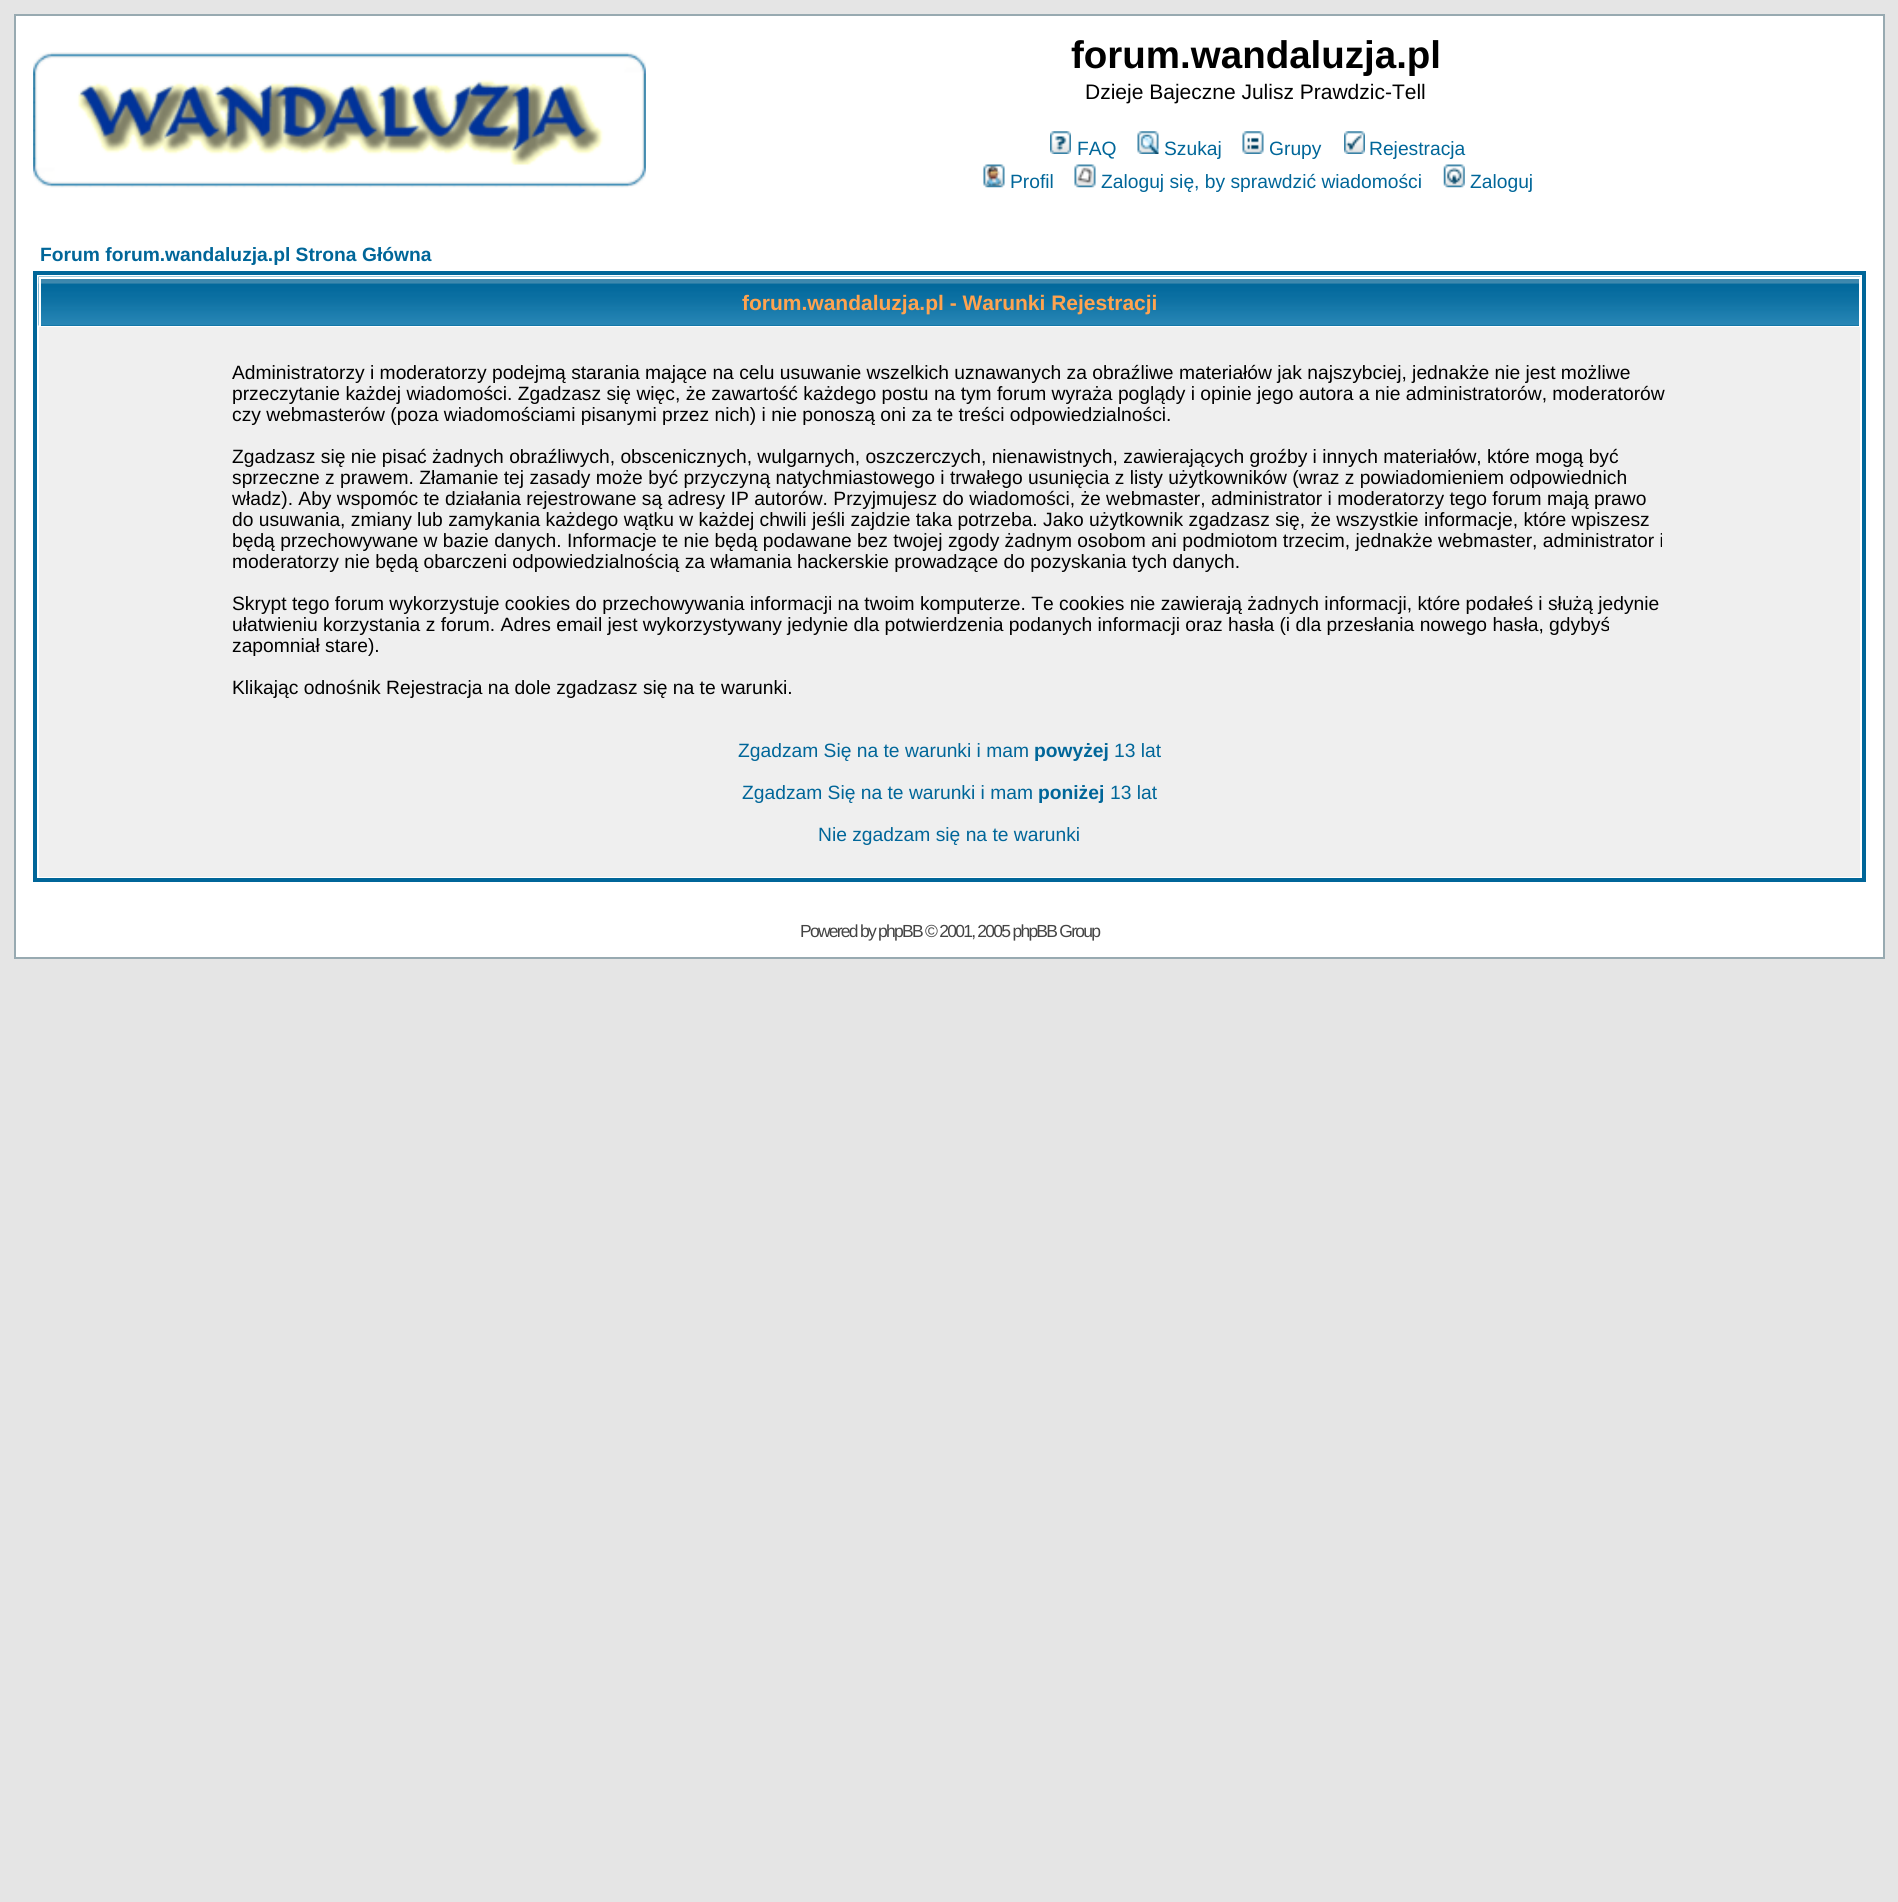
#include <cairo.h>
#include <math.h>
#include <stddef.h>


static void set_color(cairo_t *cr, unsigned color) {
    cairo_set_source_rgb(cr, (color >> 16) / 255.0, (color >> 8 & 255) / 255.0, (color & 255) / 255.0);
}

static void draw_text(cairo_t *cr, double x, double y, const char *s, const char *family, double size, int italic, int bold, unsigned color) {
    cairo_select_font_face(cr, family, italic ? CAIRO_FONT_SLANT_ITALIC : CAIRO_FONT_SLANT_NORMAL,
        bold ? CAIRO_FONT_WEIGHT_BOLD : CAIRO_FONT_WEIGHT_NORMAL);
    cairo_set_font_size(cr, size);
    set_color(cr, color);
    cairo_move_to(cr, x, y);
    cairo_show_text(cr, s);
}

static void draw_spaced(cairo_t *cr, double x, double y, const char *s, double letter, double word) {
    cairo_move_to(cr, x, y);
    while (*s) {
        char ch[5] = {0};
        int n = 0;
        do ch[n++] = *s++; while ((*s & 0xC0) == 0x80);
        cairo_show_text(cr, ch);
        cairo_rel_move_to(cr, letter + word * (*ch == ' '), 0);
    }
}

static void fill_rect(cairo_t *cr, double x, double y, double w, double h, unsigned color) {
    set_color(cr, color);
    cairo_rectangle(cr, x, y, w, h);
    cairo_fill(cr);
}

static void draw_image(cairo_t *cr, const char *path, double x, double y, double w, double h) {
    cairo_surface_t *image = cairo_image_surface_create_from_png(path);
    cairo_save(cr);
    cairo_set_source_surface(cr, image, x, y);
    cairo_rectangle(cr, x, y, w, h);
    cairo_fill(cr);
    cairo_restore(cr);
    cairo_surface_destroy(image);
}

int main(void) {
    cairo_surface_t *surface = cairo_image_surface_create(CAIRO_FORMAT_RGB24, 1898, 1902);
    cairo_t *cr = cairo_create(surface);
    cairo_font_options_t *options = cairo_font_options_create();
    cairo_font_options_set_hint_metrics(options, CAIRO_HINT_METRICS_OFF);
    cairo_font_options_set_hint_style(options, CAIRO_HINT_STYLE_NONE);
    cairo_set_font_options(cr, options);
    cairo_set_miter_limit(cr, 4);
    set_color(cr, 0xE5E5E5);
    cairo_paint(cr);
    set_color(cr, 0xFFFFFF);
    cairo_rectangle(cr, 15, 15, 1869, 943);
    cairo_fill_preserve(cr);
    set_color(cr, 0x98AAB1);
    cairo_stroke(cr);
    draw_image(cr, "assets/img1.png", 33, 52, 613, 136);
    draw_text(cr, 1071, 68, "forum.wandaluzja.pl", "Liberation Sans", 38.5, 0, 1, 0x000000);
    draw_text(cr, 1085, 99, "Dzieje Bajeczne Julisz Prawdzic-Tell", "Liberation Sans", 21, 0, 0, 0x000000);
    draw_image(cr, "assets/img2.png", 1050, 131, 21, 23);
    draw_text(cr, 1077, 155, "FAQ", "Liberation Sans", 19.25, 0, 0, 0x006699);
    draw_image(cr, "assets/img3.png", 1137, 131, 22, 23);
    draw_text(cr, 1164, 155, "Szukaj", "Liberation Sans", 19.25, 0, 0, 0x006699);
    draw_image(cr, "assets/img4.png", 1242, 131, 22, 23);
    draw_text(cr, 1269, 155, "Grupy", "Liberation Sans", 19.25, 0, 0, 0x006699);
    draw_image(cr, "assets/img5.png", 1344, 131, 21, 23);
    draw_text(cr, 1369, 155, "Rejestracja", "Liberation Sans", 19.25, 0, 0, 0x006699);
    draw_image(cr, "assets/img6.png", 983, 164, 22, 24);
    draw_text(cr, 1010, 188, "Profil", "Liberation Sans", 19.25, 0, 0, 0x006699);
    draw_image(cr, "assets/img7.png", 1074, 164, 22, 24);
    draw_text(cr, 1101, 188, "Zaloguj się, by sprawdzić wiadomości", "Liberation Sans", 19.25, 0, 0, 0x006699);
    draw_image(cr, "assets/img8.png", 1443, 164, 22, 24);
    draw_text(cr, 1470, 188, "Zaloguj", "Liberation Sans", 19.25, 0, 0, 0x006699);
    draw_text(cr, 40, 261, "Forum forum.wandaluzja.pl Strona Główna", "Liberation Sans", 19.25, 0, 1, 0x006699);
    cairo_rectangle(cr, 35, 273, 1829, 607);
    cairo_set_line_width(cr, 4);
    cairo_stroke(cr);
    fill_rect(cr, 41, 325, 1818, 1, 0x006699);
    draw_image(cr, "assets/img9.png", 38, 276, 1823, 50);
    fill_rect(cr, 39, 277, 1821, 2, 0xFFFFFF);
    fill_rect(cr, 1859, 277, 2, 49, 0xFFFFFF);
    fill_rect(cr, 39, 277, 2, 49, 0xFFFFFF);
    draw_text(cr, 742, 310, "forum.wandaluzja.pl - Warunki Rejestracji", "Liberation Sans", 21, 0, 1, 0xFFA34F);
    fill_rect(cr, 39, 327, 1821, 550, 0xEFEFEF);
    draw_text(cr, 232, 379, "Administratorzy i moderatorzy podejmą starania mające na celu usuwanie wszelkich uznawanych za obraźliwe materiałów jak najszybciej, jednakże nie jest możliwe", "Liberation Sans", 19.25, 0, 0, 0x000000);
    draw_text(cr, 232, 400, "przeczytanie każdej wiadomości. Zgadzasz się więc, że zawartość każdego postu na tym forum wyraża poglądy i opinie jego autora a nie administratorów, moderatorów", "Liberation Sans", 19.25, 0, 0, 0x000000);
    draw_text(cr, 232, 421, "czy webmasterów (poza wiadomościami pisanymi przez nich) i nie ponoszą oni za te treści odpowiedzialności.", "Liberation Sans", 19.25, 0, 0, 0x000000);
    draw_text(cr, 232, 463, "Zgadzasz się nie pisać żadnych obraźliwych, obscenicznych, wulgarnych, oszczerczych, nienawistnych, zawierających groźby i innych materiałów, które mogą być", "Liberation Sans", 19.25, 0, 0, 0x000000);
    draw_text(cr, 232, 484, "sprzeczne z prawem. Złamanie tej zasady może być przyczyną natychmiastowego i trwałego usunięcia z listy użytkowników (wraz z powiadomieniem odpowiednich", "Liberation Sans", 19.25, 0, 0, 0x000000);
    draw_text(cr, 232, 505, "władz). Aby wspomóc te działania rejestrowane są adresy IP autorów. Przyjmujesz do wiadomości, że webmaster, administrator i moderatorzy tego forum mają prawo", "Liberation Sans", 19.25, 0, 0, 0x000000);
    draw_text(cr, 232, 526, "do usuwania, zmiany lub zamykania każdego wątku w każdej chwili jeśli zajdzie taka potrzeba. Jako użytkownik zgadzasz się, że wszystkie informacje, które wpiszesz", "Liberation Sans", 19.25, 0, 0, 0x000000);
    draw_text(cr, 232, 547, "będą przechowywane w bazie danych. Informacje te nie będą podawane bez twojej zgody żadnym osobom ani podmiotom trzecim, jednakże webmaster, administrator i", "Liberation Sans", 19.25, 0, 0, 0x000000);
    draw_text(cr, 232, 568, "moderatorzy nie będą obarczeni odpowiedzialnością za włamania hackerskie prowadzące do pozyskania tych danych.", "Liberation Sans", 19.25, 0, 0, 0x000000);
    draw_text(cr, 232, 610, "Skrypt tego forum wykorzystuje cookies do przechowywania informacji na twoim komputerze. Te cookies nie zawierają żadnych informacji, które podałeś i służą jedynie", "Liberation Sans", 19.25, 0, 0, 0x000000);
    draw_text(cr, 232, 631, "ułatwieniu korzystania z forum. Adres email jest wykorzystywany jedynie dla potwierdzenia podanych informacji oraz hasła (i dla przesłania nowego hasła, gdybyś", "Liberation Sans", 19.25, 0, 0, 0x000000);
    draw_text(cr, 232, 652, "zapomniał stare).", "Liberation Sans", 19.25, 0, 0, 0x000000);
    draw_text(cr, 232, 694, "Klikając odnośnik Rejestracja na dole zgadzasz się na te warunki.", "Liberation Sans", 19.25, 0, 0, 0x000000);
    draw_text(cr, 738, 757, "Zgadzam Się na te warunki i mam", "Liberation Sans", 19.25, 0, 0, 0x006699);
    draw_text(cr, 1034, 757, "powyżej", "Liberation Sans", 19.25, 0, 1, 0x006699);
    draw_text(cr, 1114, 757, "13 lat", "Liberation Sans", 19.25, 0, 0, 0x006699);
    draw_text(cr, 742, 799, "Zgadzam Się na te warunki i mam", "Liberation Sans", 19.25, 0, 0, 0x006699);
    draw_text(cr, 1038, 799, "poniżej", "Liberation Sans", 19.25, 0, 1, 0x006699);
    draw_text(cr, 1110, 799, "13 lat", "Liberation Sans", 19.25, 0, 0, 0x006699);
    draw_text(cr, 818, 841, "Nie zgadzam się na te warunki", "Liberation Sans", 19.25, 0, 0, 0x006699);
    cairo_set_font_size(cr, 17.5);
    set_color(cr, 0x444444);
    draw_spaced(cr, 800, 937, "Powered by phpBB © 2001, 2005 phpBB Group", -1.75, 0);
    cairo_surface_write_to_png(surface, "output.png");
    cairo_font_options_destroy(options);
    cairo_destroy(cr);
    cairo_surface_destroy(surface);
    return 0;
}
